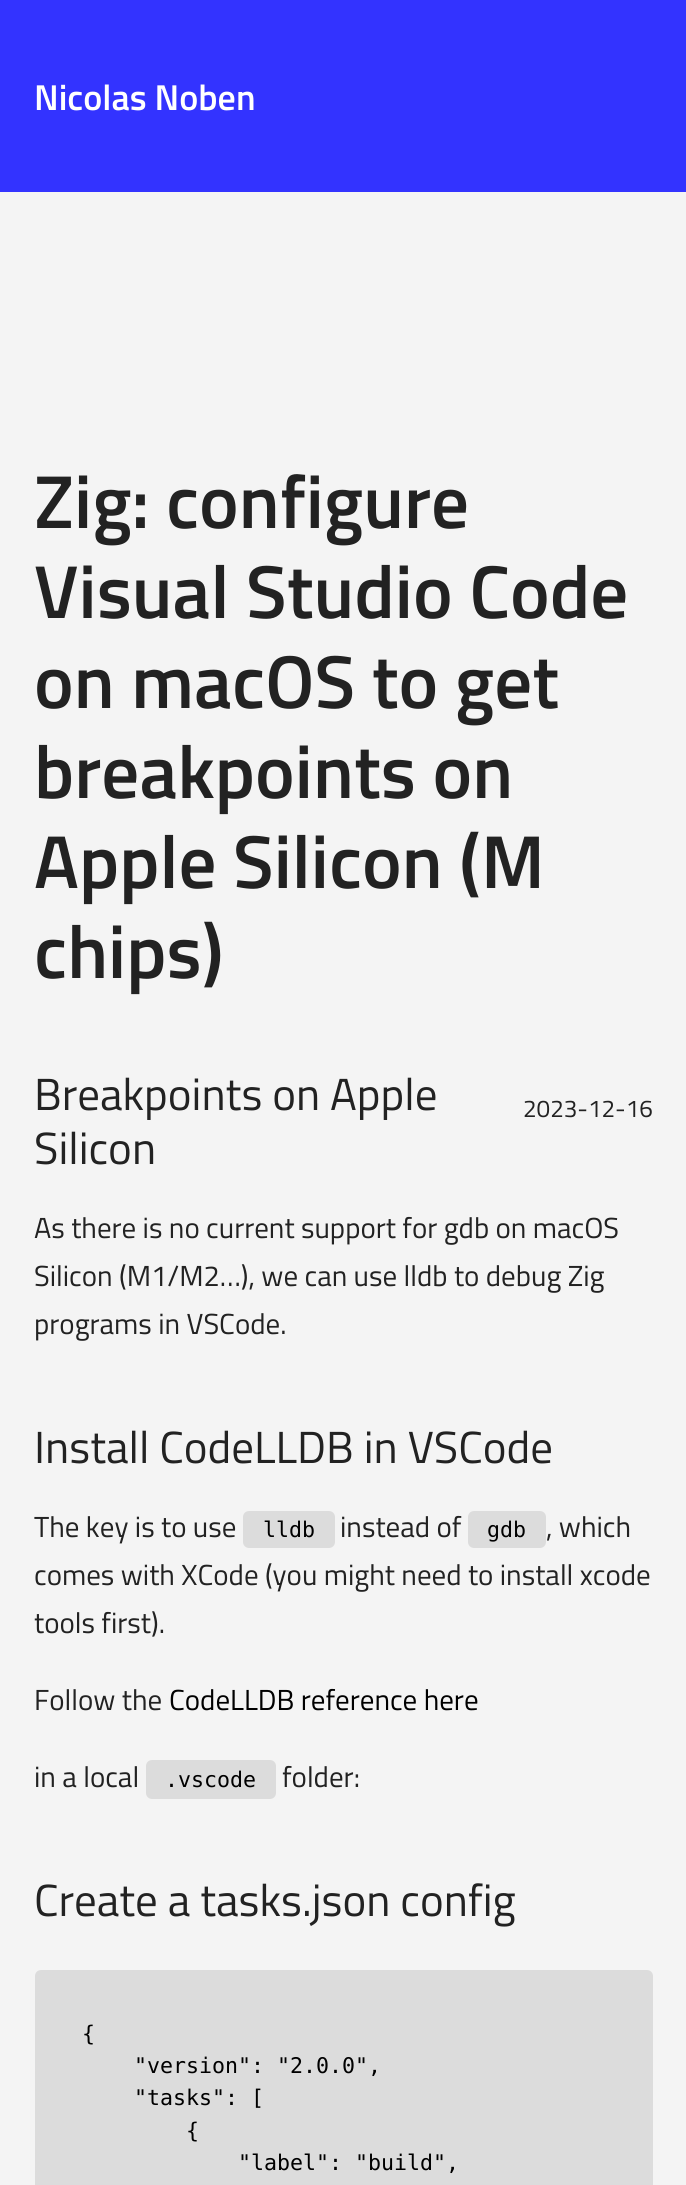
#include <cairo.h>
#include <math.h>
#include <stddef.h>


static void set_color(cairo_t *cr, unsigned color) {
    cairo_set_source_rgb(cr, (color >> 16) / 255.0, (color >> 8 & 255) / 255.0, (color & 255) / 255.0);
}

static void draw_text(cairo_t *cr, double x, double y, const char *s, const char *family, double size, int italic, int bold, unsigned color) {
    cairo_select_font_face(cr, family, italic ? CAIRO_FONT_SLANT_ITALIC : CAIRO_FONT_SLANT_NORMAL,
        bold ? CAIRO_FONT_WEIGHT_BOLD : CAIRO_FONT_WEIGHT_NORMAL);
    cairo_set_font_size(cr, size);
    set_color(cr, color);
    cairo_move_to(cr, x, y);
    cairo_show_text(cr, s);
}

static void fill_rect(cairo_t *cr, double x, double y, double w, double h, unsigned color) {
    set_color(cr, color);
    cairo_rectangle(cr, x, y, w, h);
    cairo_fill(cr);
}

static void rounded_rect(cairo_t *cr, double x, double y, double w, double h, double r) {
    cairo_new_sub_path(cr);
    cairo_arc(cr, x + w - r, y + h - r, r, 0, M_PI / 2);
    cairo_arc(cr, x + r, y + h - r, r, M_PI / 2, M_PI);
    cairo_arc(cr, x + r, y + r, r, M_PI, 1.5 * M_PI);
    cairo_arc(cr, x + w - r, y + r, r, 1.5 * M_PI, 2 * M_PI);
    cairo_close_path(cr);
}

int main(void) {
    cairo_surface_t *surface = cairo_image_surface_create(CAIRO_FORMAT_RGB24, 686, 2185);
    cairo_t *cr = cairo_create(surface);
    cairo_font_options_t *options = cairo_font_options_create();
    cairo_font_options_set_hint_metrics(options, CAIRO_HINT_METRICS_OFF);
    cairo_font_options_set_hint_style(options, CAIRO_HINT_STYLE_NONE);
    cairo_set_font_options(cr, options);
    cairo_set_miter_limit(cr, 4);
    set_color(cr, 0x3333FF);
    cairo_paint(cr);
    draw_text(cr, 34, 110, "Nicolas Noben", "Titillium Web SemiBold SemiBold", 36, 0, 0, 0xFFFFFF);
    fill_rect(cr, 0, 192, 686, 1993, 0xF4F4F4);
    draw_text(cr, 34, 528, "Zig: configure", "Titillium Web SemiBold SemiBold", 75, 0, 0, 0x222222);
    draw_text(cr, 34, 618, "Visual Studio Code", "Titillium Web SemiBold SemiBold", 75, 0, 0, 0x222222);
    draw_text(cr, 34, 708, "on macOS to get", "Titillium Web SemiBold SemiBold", 75, 0, 0, 0x222222);
    draw_text(cr, 34, 798, "breakpoints on", "Titillium Web SemiBold SemiBold", 75, 0, 0, 0x222222);
    draw_text(cr, 34, 888, "Apple Silicon (M", "Titillium Web SemiBold SemiBold", 75, 0, 0, 0x222222);
    draw_text(cr, 34, 978, "chips)", "Titillium Web SemiBold SemiBold", 75, 0, 0, 0x222222);
    draw_text(cr, 34, 1110, "Breakpoints on Apple", "Titillium Web", 45, 0, 0, 0x222222);
    draw_text(cr, 34, 1164, "Silicon", "Titillium Web", 45, 0, 0, 0x222222);
    draw_text(cr, 523, 1117, "2023-12-16", "Titillium Web", 24.25, 0, 0, 0x222222);
    draw_text(cr, 34, 1238, "As there is no current support for gdb on macOS", "Titillium Web", 29, 0, 0, 0x222222);
    draw_text(cr, 34, 1286, "Silicon (M1/M2…), we can use lldb to debug Zig", "Titillium Web", 29, 0, 0, 0x222222);
    draw_text(cr, 34, 1334, "programs in VSCode.", "Titillium Web", 29, 0, 0, 0x222222);
    draw_text(cr, 34, 1463, "Install CodeLLDB in VSCode", "Titillium Web", 45, 0, 0, 0x222222);
    draw_text(cr, 34, 1537, "The key is to use", "Titillium Web", 29, 0, 0, 0x222222);
    set_color(cr, 0xDCDCDC);
    rounded_rect(cr, 243, 1511, 92, 37, 6);
    cairo_fill(cr);
    draw_text(cr, 263, 1537, "lldb", "DejaVu Sans Mono", 21.6, 0, 0, 0x000000);
    draw_text(cr, 340, 1537, "instead of", "Titillium Web", 29, 0, 0, 0x222222);
    set_color(cr, 0xDCDCDC);
    rounded_rect(cr, 468, 1511, 78, 37, 6);
    cairo_fill(cr);
    draw_text(cr, 487, 1537, "gdb", "DejaVu Sans Mono", 21.6, 0, 0, 0x000000);
    draw_text(cr, 546, 1537, ", which", "Titillium Web", 29, 0, 0, 0x222222);
    draw_text(cr, 34, 1585, "comes with XCode (you might need to install xcode", "Titillium Web", 29, 0, 0, 0x222222);
    draw_text(cr, 34, 1633, "tools first).", "Titillium Web", 29, 0, 0, 0x222222);
    draw_text(cr, 34, 1710, "Follow the", "Titillium Web", 29, 0, 0, 0x222222);
    draw_text(cr, 169, 1710, "CodeLLDB reference here", "Titillium Web", 29, 0, 0, 0x000000);
    draw_text(cr, 34, 1787, "in a local", "Titillium Web", 29, 0, 0, 0x222222);
    set_color(cr, 0xDCDCDC);
    rounded_rect(cr, 146, 1760, 130, 39, 6);
    cairo_fill(cr);
    draw_text(cr, 165, 1787, ".vscode", "DejaVu Sans Mono", 21.6, 0, 0, 0x000000);
    draw_text(cr, 282, 1787, "folder:", "Titillium Web", 29, 0, 0, 0x222222);
    draw_text(cr, 34, 1916, "Create a tasks.json config", "Titillium Web", 45, 0, 0, 0x222222);
    set_color(cr, 0xDCDCDC);
    rounded_rect(cr, 35, 1970, 618, 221, 6);
    cairo_fill(cr);
    draw_text(cr, 82, 2041, "{", "DejaVu Sans Mono", 21.6, 0, 0, 0x000000);
    draw_text(cr, 134, 2073, "\"version\": \"2.0.0\",", "DejaVu Sans Mono", 21.6, 0, 0, 0x000000);
    draw_text(cr, 134, 2105, "\"tasks\": [", "DejaVu Sans Mono", 21.6, 0, 0, 0x000000);
    draw_text(cr, 186, 2138, "{", "DejaVu Sans Mono", 21.6, 0, 0, 0x000000);
    draw_text(cr, 238, 2170, "\"label\": \"build\",", "DejaVu Sans Mono", 21.6, 0, 0, 0x000000);
    cairo_surface_write_to_png(surface, "output.png");
    cairo_font_options_destroy(options);
    cairo_destroy(cr);
    cairo_surface_destroy(surface);
    return 0;
}
